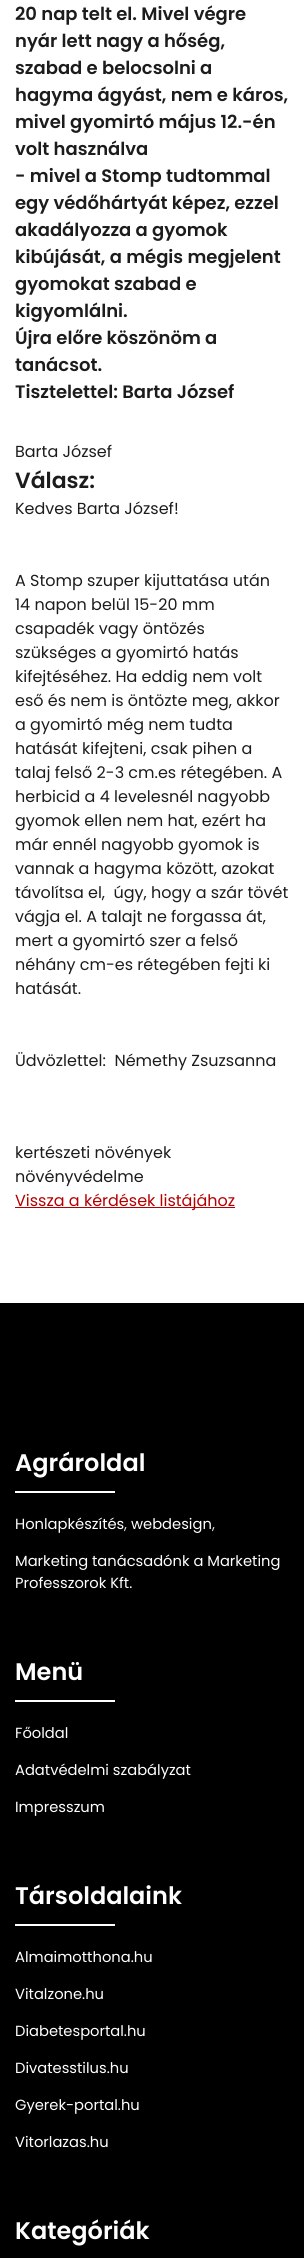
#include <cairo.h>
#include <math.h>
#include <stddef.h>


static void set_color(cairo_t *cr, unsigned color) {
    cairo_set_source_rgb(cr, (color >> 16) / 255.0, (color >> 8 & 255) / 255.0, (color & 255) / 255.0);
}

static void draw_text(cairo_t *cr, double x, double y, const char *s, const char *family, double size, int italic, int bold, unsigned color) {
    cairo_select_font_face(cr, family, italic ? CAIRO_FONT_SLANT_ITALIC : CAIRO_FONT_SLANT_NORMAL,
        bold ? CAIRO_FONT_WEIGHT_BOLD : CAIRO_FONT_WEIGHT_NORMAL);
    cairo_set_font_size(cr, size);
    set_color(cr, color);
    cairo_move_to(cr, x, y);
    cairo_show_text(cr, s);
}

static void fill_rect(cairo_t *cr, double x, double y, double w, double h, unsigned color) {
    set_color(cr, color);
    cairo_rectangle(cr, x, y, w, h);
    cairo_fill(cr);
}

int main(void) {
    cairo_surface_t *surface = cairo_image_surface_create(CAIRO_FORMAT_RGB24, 304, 2258);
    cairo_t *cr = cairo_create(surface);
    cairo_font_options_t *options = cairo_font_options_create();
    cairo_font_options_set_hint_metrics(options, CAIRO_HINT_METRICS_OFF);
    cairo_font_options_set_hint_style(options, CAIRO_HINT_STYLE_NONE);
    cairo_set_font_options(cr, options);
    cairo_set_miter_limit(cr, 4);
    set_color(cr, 0xFFFFFF);
    cairo_paint(cr);
    draw_text(cr, 15, 20, "20 nap telt el. Mivel végre", "Poppins SemiBold", 18, 0, 0, 0x1C1C1C);
    draw_text(cr, 15, 47, "nyár lett nagy a hőség,", "Poppins SemiBold", 18, 0, 0, 0x1C1C1C);
    draw_text(cr, 15, 74, "szabad e belocsolni a", "Poppins SemiBold", 18, 0, 0, 0x1C1C1C);
    draw_text(cr, 15, 101, "hagyma ágyást, nem e káros,", "Poppins SemiBold", 18, 0, 0, 0x1C1C1C);
    draw_text(cr, 15, 128, "mivel gyomirtó május 12.-én", "Poppins SemiBold", 18, 0, 0, 0x1C1C1C);
    draw_text(cr, 15, 155, "volt használva", "Poppins SemiBold", 18, 0, 0, 0x1C1C1C);
    draw_text(cr, 15, 182, "- mivel a Stomp tudtommal", "Poppins SemiBold", 18, 0, 0, 0x1C1C1C);
    draw_text(cr, 15, 209, "egy védőhártyát képez, ezzel", "Poppins SemiBold", 18, 0, 0, 0x1C1C1C);
    draw_text(cr, 15, 236, "akadályozza a gyomok", "Poppins SemiBold", 18, 0, 0, 0x1C1C1C);
    draw_text(cr, 15, 263, "kibújását, a mégis megjelent", "Poppins SemiBold", 18, 0, 0, 0x1C1C1C);
    draw_text(cr, 15, 290, "gyomokat szabad e", "Poppins SemiBold", 18, 0, 0, 0x1C1C1C);
    draw_text(cr, 15, 317, "kigyomlálni.", "Poppins SemiBold", 18, 0, 0, 0x1C1C1C);
    draw_text(cr, 15, 344, "Újra előre köszönöm a", "Poppins SemiBold", 18, 0, 0, 0x1C1C1C);
    draw_text(cr, 15, 371, "tanácsot.", "Poppins SemiBold", 18, 0, 0, 0x1C1C1C);
    draw_text(cr, 15, 398, "Tisztelettel: Barta József", "Poppins SemiBold", 18, 0, 0, 0x1C1C1C);
    draw_text(cr, 15, 457, "Barta József", "Poppins", 16, 0, 0, 0x1C1C1C);
    draw_text(cr, 15, 488, "Válasz:", "Poppins SemiBold", 22, 0, 0, 0x1C1C1C);
    draw_text(cr, 15, 514, "Kedves Barta József!", "Poppins", 16, 0, 0, 0x1C1C1C);
    draw_text(cr, 15, 586, "A Stomp szuper kijuttatása után", "Poppins", 16, 0, 0, 0x1C1C1C);
    draw_text(cr, 15, 610, "14 napon belül 15-20 mm", "Poppins", 16, 0, 0, 0x1C1C1C);
    draw_text(cr, 15, 634, "csapadék vagy öntözés", "Poppins", 16, 0, 0, 0x1C1C1C);
    draw_text(cr, 15, 658, "szükséges a gyomirtó hatás", "Poppins", 16, 0, 0, 0x1C1C1C);
    draw_text(cr, 15, 682, "kifejtéséhez. Ha eddig nem volt", "Poppins", 16, 0, 0, 0x1C1C1C);
    draw_text(cr, 15, 706, "eső és nem is öntözte meg, akkor", "Poppins", 16, 0, 0, 0x1C1C1C);
    draw_text(cr, 15, 730, "a gyomirtó még nem tudta", "Poppins", 16, 0, 0, 0x1C1C1C);
    draw_text(cr, 15, 754, "hatását kifejteni, csak pihen a", "Poppins", 16, 0, 0, 0x1C1C1C);
    draw_text(cr, 15, 778, "talaj felső 2-3 cm.es rétegében. A", "Poppins", 16, 0, 0, 0x1C1C1C);
    draw_text(cr, 15, 802, "herbicid a 4 levelesnél nagyobb", "Poppins", 16, 0, 0, 0x1C1C1C);
    draw_text(cr, 15, 826, "gyomok ellen nem hat, ezért ha", "Poppins", 16, 0, 0, 0x1C1C1C);
    draw_text(cr, 15, 850, "már ennél nagyobb gyomok is", "Poppins", 16, 0, 0, 0x1C1C1C);
    draw_text(cr, 15, 874, "vannak a hagyma között, azokat", "Poppins", 16, 0, 0, 0x1C1C1C);
    draw_text(cr, 15, 898, "távolítsa el,  úgy, hogy a szár tövét", "Poppins", 16, 0, 0, 0x1C1C1C);
    draw_text(cr, 15, 922, "vágja el. A talajt ne forgassa át,", "Poppins", 16, 0, 0, 0x1C1C1C);
    draw_text(cr, 15, 946, "mert a gyomirtó szer a felső", "Poppins", 16, 0, 0, 0x1C1C1C);
    draw_text(cr, 15, 970, "néhány cm-es rétegében fejti ki", "Poppins", 16, 0, 0, 0x1C1C1C);
    draw_text(cr, 15, 994, "hatását.", "Poppins", 16, 0, 0, 0x1C1C1C);
    draw_text(cr, 15, 1066, "Üdvözlettel:  Némethy Zsuzsanna", "Poppins", 16, 0, 0, 0x1C1C1C);
    draw_text(cr, 15, 1158, "kertészeti növények", "Poppins", 16, 0, 0, 0x1C1C1C);
    draw_text(cr, 15, 1182, "növényvédelme", "Poppins", 16, 0, 0, 0x1C1C1C);
    fill_rect(cr, 15, 1207, 220, 1, 0xB50000);
    draw_text(cr, 15, 1206, "Vissza a kérdések listájához", "Poppins", 16, 0, 0, 0xB50000);
    fill_rect(cr, 0, 1303, 304, 955, 0x000000);
    draw_text(cr, 15, 1471, "Agrároldal", "Poppins SemiBold", 24, 0, 0, 0xFFFFFF);
    fill_rect(cr, 15, 1491, 100, 2, 0xFFFFFF);
    draw_text(cr, 15, 1529, "Honlapkészítés", "Poppins", 14.7, 0, 0, 0xFFFFFF);
    draw_text(cr, 124, 1529, ",", "Poppins", 14.7, 0, 0, 0xDEDEDE);
    draw_text(cr, 131, 1529, "webdesign", "Poppins", 14.7, 0, 0, 0xFFFFFF);
    draw_text(cr, 212, 1529, ",", "Poppins", 14.7, 0, 0, 0xDEDEDE);
    draw_text(cr, 15, 1566, "Marketing tanácsadónk a Marketing", "Poppins", 14.7, 0, 0, 0xFFFFFF);
    draw_text(cr, 15, 1588, "Professzorok Kft.", "Poppins", 14.7, 0, 0, 0xFFFFFF);
    draw_text(cr, 15, 1680, "Menü", "Poppins SemiBold", 24, 0, 0, 0xFFFFFF);
    fill_rect(cr, 15, 1700, 100, 2, 0xFFFFFF);
    draw_text(cr, 15, 1738, "Főoldal", "Poppins", 14.7, 0, 0, 0xFFFFFF);
    draw_text(cr, 15, 1775, "Adatvédelmi szabályzat", "Poppins", 14.7, 0, 0, 0xFFFFFF);
    draw_text(cr, 15, 1812, "Impresszum", "Poppins", 14.7, 0, 0, 0xFFFFFF);
    draw_text(cr, 15, 1904, "Társoldalaink", "Poppins SemiBold", 24, 0, 0, 0xFFFFFF);
    fill_rect(cr, 15, 1924, 100, 2, 0xFFFFFF);
    draw_text(cr, 15, 1962, "Almaimotthona.hu", "Poppins", 14.7, 0, 0, 0xFFFFFF);
    draw_text(cr, 15, 1999, "Vitalzone.hu", "Poppins", 14.7, 0, 0, 0xFFFFFF);
    draw_text(cr, 15, 2036, "Diabetesportal.hu", "Poppins", 14.7, 0, 0, 0xFFFFFF);
    draw_text(cr, 15, 2073, "Divatesstilus.hu", "Poppins", 14.7, 0, 0, 0xFFFFFF);
    draw_text(cr, 15, 2110, "Gyerek-portal.hu", "Poppins", 14.7, 0, 0, 0xFFFFFF);
    draw_text(cr, 15, 2147, "Vitorlazas.hu", "Poppins", 14.7, 0, 0, 0xFFFFFF);
    draw_text(cr, 15, 2239, "Kategóriák", "Poppins SemiBold", 24, 0, 0, 0xFFFFFF);
    cairo_surface_write_to_png(surface, "output.png");
    cairo_font_options_destroy(options);
    cairo_destroy(cr);
    cairo_surface_destroy(surface);
    return 0;
}
